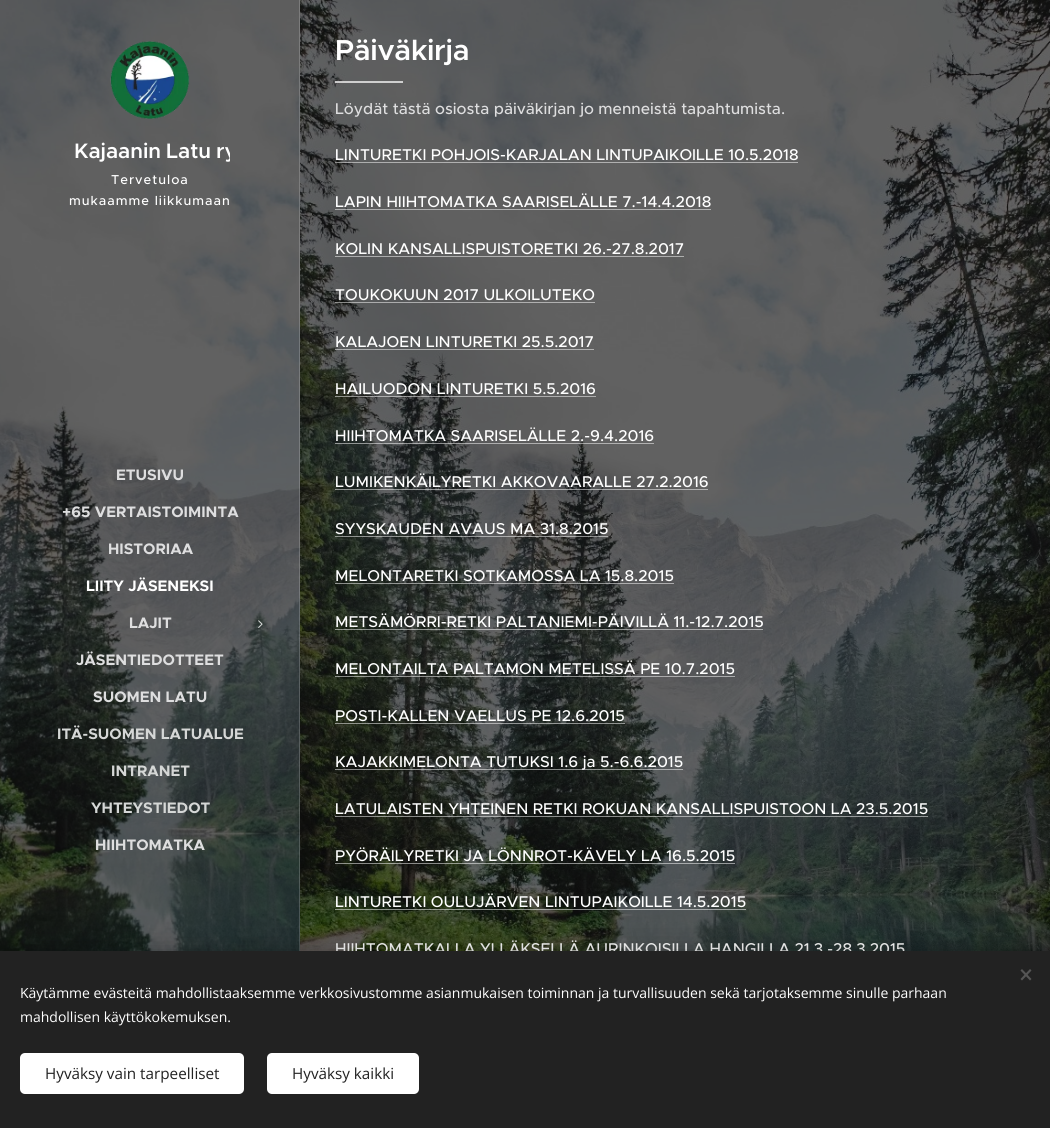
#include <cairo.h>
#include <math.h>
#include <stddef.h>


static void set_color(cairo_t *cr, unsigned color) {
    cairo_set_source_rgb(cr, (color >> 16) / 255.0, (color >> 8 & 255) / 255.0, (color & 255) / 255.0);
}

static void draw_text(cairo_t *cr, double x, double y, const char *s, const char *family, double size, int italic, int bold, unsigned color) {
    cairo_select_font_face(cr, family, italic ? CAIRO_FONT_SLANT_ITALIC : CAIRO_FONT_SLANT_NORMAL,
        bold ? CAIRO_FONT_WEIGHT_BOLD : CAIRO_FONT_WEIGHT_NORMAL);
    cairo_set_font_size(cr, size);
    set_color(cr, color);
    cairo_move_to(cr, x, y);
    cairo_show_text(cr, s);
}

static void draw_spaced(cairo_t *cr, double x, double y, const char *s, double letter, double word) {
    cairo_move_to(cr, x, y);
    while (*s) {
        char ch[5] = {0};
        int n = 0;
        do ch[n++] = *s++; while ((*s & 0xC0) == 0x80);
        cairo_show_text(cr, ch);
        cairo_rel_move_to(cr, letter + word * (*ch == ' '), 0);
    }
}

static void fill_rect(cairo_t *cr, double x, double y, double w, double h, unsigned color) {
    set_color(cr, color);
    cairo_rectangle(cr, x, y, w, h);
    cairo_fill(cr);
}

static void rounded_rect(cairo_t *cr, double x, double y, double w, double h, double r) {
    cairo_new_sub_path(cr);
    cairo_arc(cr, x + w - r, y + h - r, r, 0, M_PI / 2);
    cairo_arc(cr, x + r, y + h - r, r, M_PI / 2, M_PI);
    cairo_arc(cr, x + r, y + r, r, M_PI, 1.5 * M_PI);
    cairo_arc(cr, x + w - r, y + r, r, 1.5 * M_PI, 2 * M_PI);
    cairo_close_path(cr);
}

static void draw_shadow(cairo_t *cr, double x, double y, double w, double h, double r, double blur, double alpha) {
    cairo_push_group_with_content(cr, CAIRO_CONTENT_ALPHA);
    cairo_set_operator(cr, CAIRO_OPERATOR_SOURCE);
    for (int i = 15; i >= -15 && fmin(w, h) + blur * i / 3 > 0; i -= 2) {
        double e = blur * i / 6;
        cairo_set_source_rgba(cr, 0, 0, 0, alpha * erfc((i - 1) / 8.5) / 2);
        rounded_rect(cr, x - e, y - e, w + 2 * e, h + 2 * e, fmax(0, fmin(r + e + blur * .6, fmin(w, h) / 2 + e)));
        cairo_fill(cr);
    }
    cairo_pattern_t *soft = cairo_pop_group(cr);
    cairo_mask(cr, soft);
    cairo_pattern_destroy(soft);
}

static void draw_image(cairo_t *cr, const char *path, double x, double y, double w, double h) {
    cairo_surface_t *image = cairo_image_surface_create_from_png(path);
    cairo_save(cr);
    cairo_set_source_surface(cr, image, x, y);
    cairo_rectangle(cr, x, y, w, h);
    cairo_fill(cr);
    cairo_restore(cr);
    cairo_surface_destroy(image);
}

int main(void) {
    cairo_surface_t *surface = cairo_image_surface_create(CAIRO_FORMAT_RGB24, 1050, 1128);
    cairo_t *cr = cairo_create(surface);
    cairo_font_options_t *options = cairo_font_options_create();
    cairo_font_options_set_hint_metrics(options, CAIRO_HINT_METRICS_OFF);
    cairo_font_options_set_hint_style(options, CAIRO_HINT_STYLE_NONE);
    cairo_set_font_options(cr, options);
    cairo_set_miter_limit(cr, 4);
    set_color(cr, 0xFFFFFF);
    cairo_paint(cr);
    draw_image(cr, "assets/img1.png", 0, 0, 300, 951);
    draw_image(cr, "assets/img2.png", 110, 41, 80, 78);
    cairo_save(cr);
    cairo_rectangle(cr, 70, 136, 160, 34);
    cairo_clip(cr);
    cairo_select_font_face(cr, "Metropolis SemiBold", CAIRO_FONT_SLANT_NORMAL, CAIRO_FONT_WEIGHT_NORMAL);
    cairo_set_font_size(cr, 21);
    set_color(cr, 0xFFFFFF);
    draw_spaced(cr, 74, 158, "Kajaanin Latu ry", 0, -1);
    cairo_restore(cr);
    cairo_select_font_face(cr, "Metropolis Medium", CAIRO_FONT_SLANT_NORMAL, CAIRO_FONT_WEIGHT_NORMAL);
    cairo_set_font_size(cr, 13);
    set_color(cr, 0xFFFFFF);
    draw_spaced(cr, 111, 184, "Tervetuloa", 1, 0);
    draw_spaced(cr, 69, 205, "mukaamme liikkumaan", 1, 0);
    draw_text(cr, 116, 480, "ETUSIVU", "Metropolis", 15.25, 0, 1, 0xDEDEDF);
    draw_text(cr, 62, 517, "+65 VERTAISTOIMINTA", "Metropolis", 15.25, 0, 1, 0xDEDEDF);
    draw_text(cr, 108, 554, "HISTORIAA", "Metropolis", 15.25, 0, 1, 0xDEDEDF);
    draw_text(cr, 86, 591, "LIITY JÄSENEKSI", "Metropolis", 15.25, 0, 1, 0xFFFFFF);
    draw_text(cr, 129, 628, "LAJIT", "Metropolis", 15.25, 0, 1, 0xDEDEDF);
    draw_image(cr, "assets/img3.png", 258, 620, 5, 8);
    draw_text(cr, 76, 665, "JÄSENTIEDOTTEET", "Metropolis", 15.25, 0, 1, 0xDEDEDF);
    draw_text(cr, 93, 702, "SUOMEN LATU", "Metropolis", 15.25, 0, 1, 0xDEDEDF);
    draw_text(cr, 57, 739, "ITÄ-SUOMEN LATUALUE", "Metropolis", 15.25, 0, 1, 0xD5D7D6);
    draw_text(cr, 111, 776, "INTRANET", "Metropolis", 15.25, 0, 1, 0xD5D7D6);
    draw_text(cr, 91, 813, "YHTEYSTIEDOT", "Metropolis", 15.25, 0, 1, 0xD5D7D6);
    draw_text(cr, 95, 850, "HIIHTOMATKA", "Metropolis", 15.25, 0, 1, 0xDEDEDF);
    draw_image(cr, "assets/img4.png", 300, 0, 750, 951);
    cairo_select_font_face(cr, "Metropolis SemiBold", CAIRO_FONT_SLANT_NORMAL, CAIRO_FONT_WEIGHT_NORMAL);
    cairo_set_font_size(cr, 29);
    set_color(cr, 0xFFFFFF);
    draw_spaced(cr, 335, 60, "Päiväkirja", -0.25, 0);
    cairo_set_source_rgba(cr, 1, 1, 1, 0.7);
    cairo_rectangle(cr, 335, 81, 68, 2);
    cairo_fill(cr);
    draw_text(cr, 335, 114, "Löydät tästä osiosta päiväkirjan jo menneistä tapahtumista.", "Metropolis Medium", 15.7, 0, 0, 0xDEDEDF);
    draw_text(cr, 335, 160, "LINTURETKI POHJOIS-KARJALAN LINTUPAIKOILLE 10.5.2018", "Metropolis Medium", 15.7, 0, 0, 0xFFFFFF);
    cairo_set_source_rgba(cr, 1, 1, 1, 0.5);
    cairo_rectangle(cr, 335, 162, 463, 1);
    cairo_fill(cr);
    draw_text(cr, 335, 207, "LAPIN HIIHTOMATKA SAARISELÄLLE 7.-14.4.2018", "Metropolis Medium", 15.7, 0, 0, 0xFFFFFF);
    cairo_set_source_rgba(cr, 1, 1, 1, 0.5);
    cairo_rectangle(cr, 335, 209, 376, 1);
    cairo_fill(cr);
    draw_text(cr, 335, 254, "KOLIN KANSALLISPUISTORETKI 26.-27.8.2017", "Metropolis Medium", 15.7, 0, 0, 0xFFFFFF);
    cairo_set_source_rgba(cr, 1, 1, 1, 0.5);
    cairo_rectangle(cr, 335, 256, 349, 1);
    cairo_fill(cr);
    draw_text(cr, 335, 300, "TOUKOKUUN 2017 ULKOILUTEKO", "Metropolis Medium", 15.7, 0, 0, 0xFFFFFF);
    cairo_set_source_rgba(cr, 1, 1, 1, 0.5);
    cairo_rectangle(cr, 335, 302, 260, 1);
    cairo_fill(cr);
    draw_text(cr, 335, 347, "KALAJOEN LINTURETKI 25.5.2017", "Metropolis Medium", 15.7, 0, 0, 0xFFFFFF);
    cairo_set_source_rgba(cr, 1, 1, 1, 0.5);
    cairo_rectangle(cr, 335, 349, 259, 1);
    cairo_fill(cr);
    draw_text(cr, 335, 394, "HAILUODON LINTURETKI 5.5.2016", "Metropolis Medium", 15.7, 0, 0, 0xFFFFFF);
    cairo_set_source_rgba(cr, 1, 1, 1, 0.5);
    cairo_rectangle(cr, 335, 396, 261, 1);
    cairo_fill(cr);
    draw_text(cr, 335, 441, "HIIHTOMATKA SAARISELÄLLE 2.-9.4.2016", "Metropolis Medium", 15.7, 0, 0, 0xFFFFFF);
    cairo_set_source_rgba(cr, 1, 1, 1, 0.5);
    cairo_rectangle(cr, 335, 443, 319, 1);
    cairo_fill(cr);
    draw_text(cr, 335, 487, "LUMIKENKÄILYRETKI AKKOVAARALLE 27.2.2016", "Metropolis Medium", 15.7, 0, 0, 0xFFFFFF);
    cairo_set_source_rgba(cr, 1, 1, 1, 0.5);
    cairo_rectangle(cr, 335, 489, 373, 1);
    cairo_fill(cr);
    draw_text(cr, 335, 534, "SYYSKAUDEN AVAUS MA 31.8.2015", "Metropolis Medium", 15.7, 0, 0, 0xFFFFFF);
    cairo_set_source_rgba(cr, 1, 1, 1, 0.5);
    cairo_rectangle(cr, 335, 536, 273, 1);
    cairo_fill(cr);
    draw_text(cr, 335, 581, "MELONTARETKI SOTKAMOSSA LA 15.8.2015", "Metropolis Medium", 15.7, 0, 0, 0xFFFFFF);
    cairo_set_source_rgba(cr, 1, 1, 1, 0.5);
    cairo_rectangle(cr, 335, 583, 339, 1);
    cairo_fill(cr);
    draw_text(cr, 335, 627, "METSÄMÖRRI-RETKI PALTANIEMI-PÄIVILLÄ 11.-12.7.2015", "Metropolis Medium", 15.7, 0, 0, 0xFFFFFF);
    cairo_set_source_rgba(cr, 1, 1, 1, 0.5);
    cairo_rectangle(cr, 335, 629, 428, 1);
    cairo_fill(cr);
    draw_text(cr, 335, 674, "MELONTAILTA PALTAMON METELISSÄ PE 10.7.2015", "Metropolis Medium", 15.7, 0, 0, 0xFFFFFF);
    cairo_set_source_rgba(cr, 1, 1, 1, 0.5);
    cairo_rectangle(cr, 335, 676, 400, 1);
    cairo_fill(cr);
    draw_text(cr, 335, 721, "POSTI-KALLEN VAELLUS PE 12.6.2015", "Metropolis Medium", 15.7, 0, 0, 0xFFFFFF);
    cairo_set_source_rgba(cr, 1, 1, 1, 0.5);
    cairo_rectangle(cr, 335, 723, 290, 1);
    cairo_fill(cr);
    cairo_rectangle(cr, 335, 769, 348, 1);
    cairo_fill(cr);
    draw_text(cr, 335, 767, "KAJAKKIMELONTA TUTUKSI 1.6 ja 5.-6.6.2015", "Metropolis Medium", 15.7, 0, 0, 0xFFFFFF);
    draw_text(cr, 335, 814, "LATULAISTEN YHTEINEN RETKI ROKUAN KANSALLISPUISTOON LA 23.5.2015", "Metropolis Medium", 15.7, 0, 0, 0xFFFFFF);
    cairo_set_source_rgba(cr, 1, 1, 1, 0.5);
    cairo_rectangle(cr, 335, 816, 593, 1);
    cairo_fill(cr);
    draw_text(cr, 335, 861, "PYÖRÄILYRETKI JA LÖNNROT-KÄVELY LA 16.5.2015", "Metropolis Medium", 15.7, 0, 0, 0xFFFFFF);
    cairo_set_source_rgba(cr, 1, 1, 1, 0.5);
    cairo_rectangle(cr, 335, 863, 400, 1);
    cairo_fill(cr);
    draw_text(cr, 335, 907, "LINTURETKI OULUJÄRVEN LINTUPAIKOILLE 14.5.2015", "Metropolis Medium", 15.7, 0, 0, 0xFFFFFF);
    cairo_set_source_rgba(cr, 1, 1, 1, 0.5);
    cairo_rectangle(cr, 335, 909, 411, 1);
    cairo_fill(cr);
    draw_text(cr, 335, 954, "HIIHTOMATKALLA YLLÄKSELLÄ AURINKOISILLA HANGILLA 21.3.-28.3.2015", "Metropolis Medium", 15.7, 0, 0, 0xFFFFFF);
    set_color(cr, 0x000000);
    draw_shadow(cr, 0, 951, 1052, 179, 0, 12.5, 0.33);
    fill_rect(cr, 0, 951, 1050, 177, 0x222222);
    set_color(cr, 0x555555);
    cairo_new_path(cr);
    cairo_move_to(cr, 1020.5, 979);
    cairo_line_to(cr, 1030, 969);
    cairo_line_to(cr, 1031.5, 970.5);
    cairo_line_to(cr, 1022, 980.5);
    cairo_close_path(cr);
    cairo_fill(cr);
    cairo_new_path(cr);
    cairo_move_to(cr, 1022, 969);
    cairo_line_to(cr, 1031.5, 979);
    cairo_line_to(cr, 1030, 980.5);
    cairo_line_to(cr, 1020.5, 970.5);
    cairo_close_path(cr);
    cairo_fill(cr);
    draw_text(cr, 20, 998, "Käytämme evästeitä mahdollistaaksemme verkkosivustomme asianmukaisen toiminnan ja turvallisuuden sekä tarjotaksemme sinulle parhaan", "Open Sans", 14, 0, 0, 0xFFFFFF);
    draw_text(cr, 20, 1022, "mahdollisen käyttökokemuksen.", "Open Sans", 14, 0, 0, 0xFFFFFF);
    rounded_rect(cr, 20, 1053, 224, 41, 5);
    cairo_fill(cr);
    draw_text(cr, 45, 1079, "Hyväksy vain tarpeelliset", "Open Sans", 15.25, 0, 0, 0x222222);
    set_color(cr, 0xFFFFFF);
    rounded_rect(cr, 267, 1053, 152, 41, 5);
    cairo_fill(cr);
    draw_text(cr, 292, 1079, "Hyväksy kaikki", "Open Sans", 15.25, 0, 0, 0x222222);
    cairo_surface_write_to_png(surface, "output.png");
    cairo_font_options_destroy(options);
    cairo_destroy(cr);
    cairo_surface_destroy(surface);
    return 0;
}
